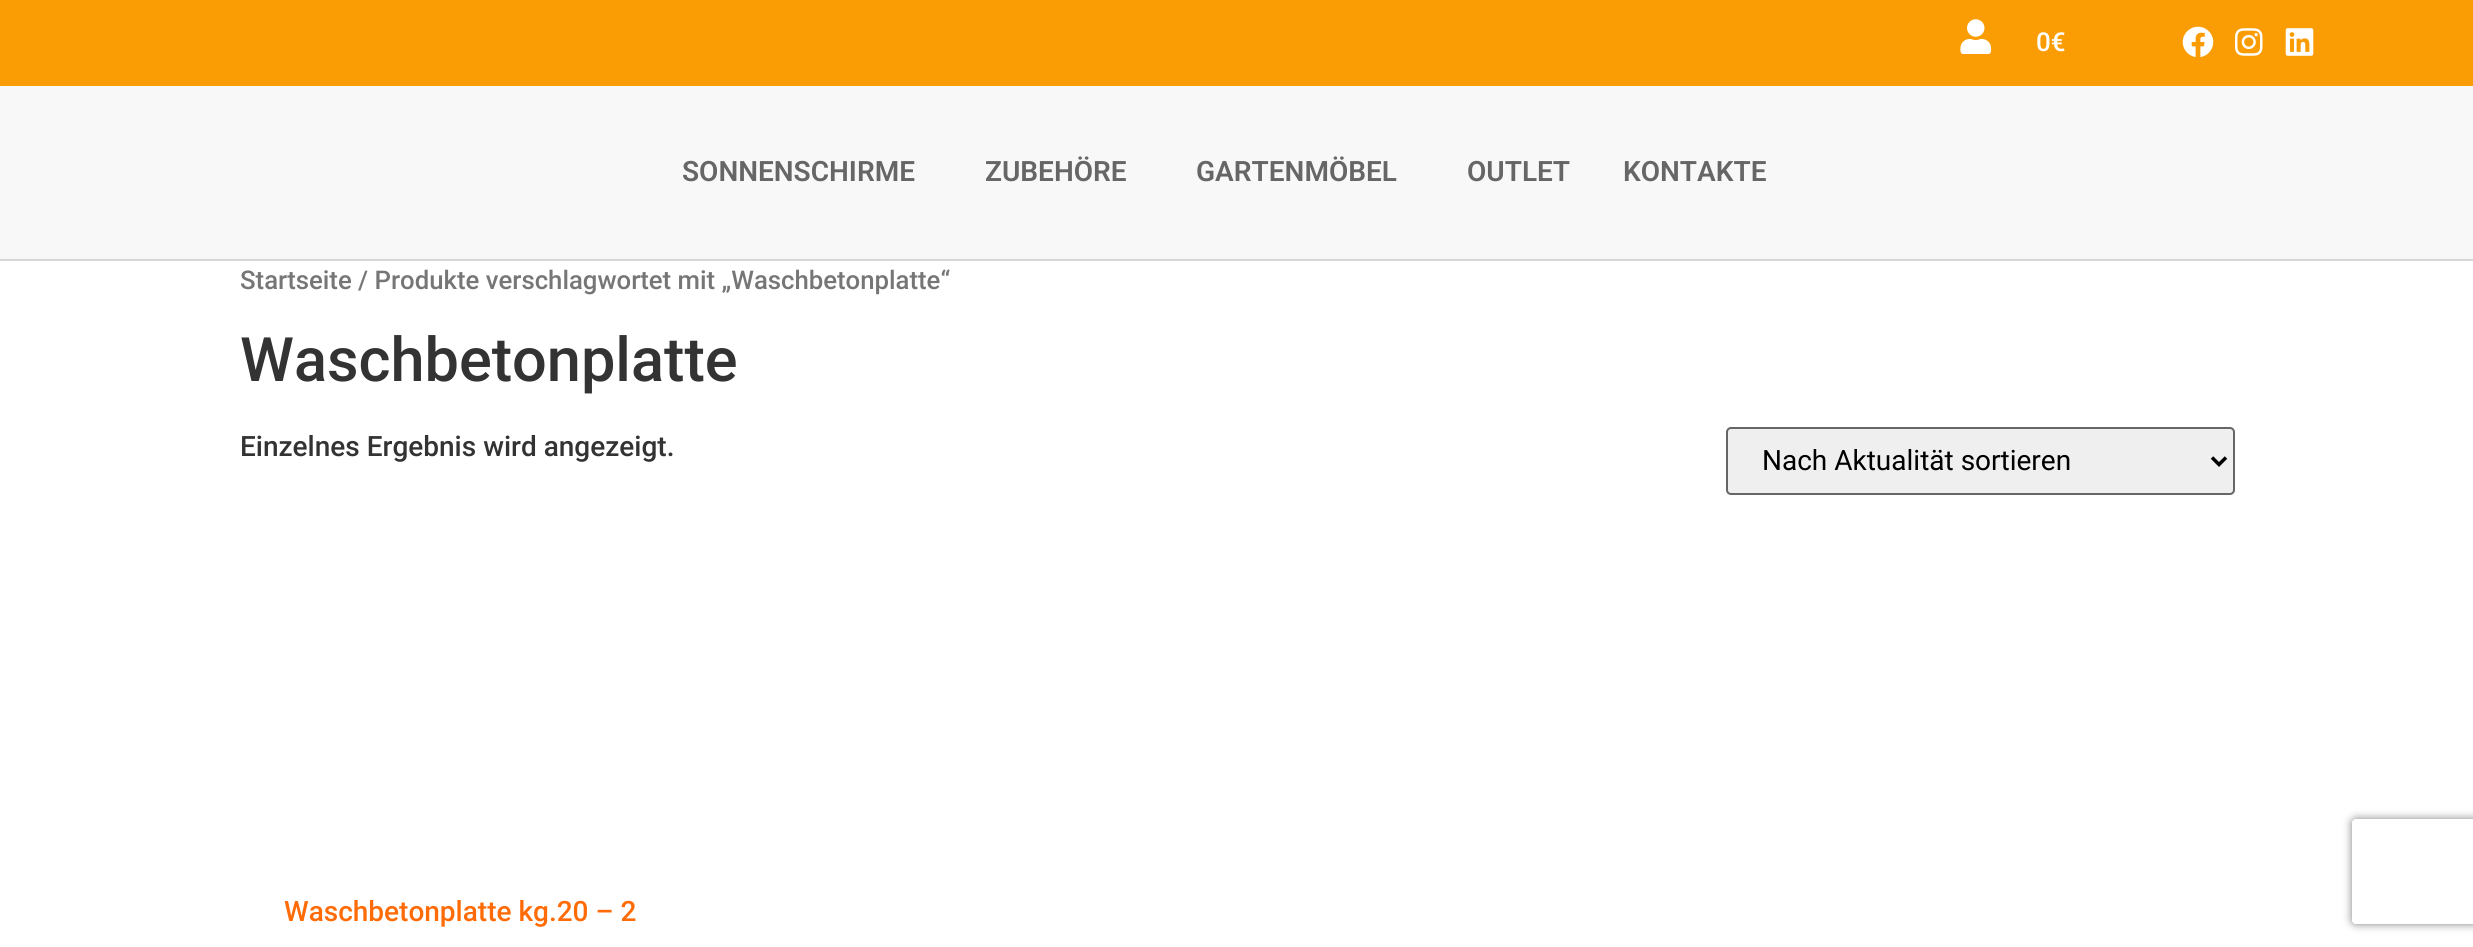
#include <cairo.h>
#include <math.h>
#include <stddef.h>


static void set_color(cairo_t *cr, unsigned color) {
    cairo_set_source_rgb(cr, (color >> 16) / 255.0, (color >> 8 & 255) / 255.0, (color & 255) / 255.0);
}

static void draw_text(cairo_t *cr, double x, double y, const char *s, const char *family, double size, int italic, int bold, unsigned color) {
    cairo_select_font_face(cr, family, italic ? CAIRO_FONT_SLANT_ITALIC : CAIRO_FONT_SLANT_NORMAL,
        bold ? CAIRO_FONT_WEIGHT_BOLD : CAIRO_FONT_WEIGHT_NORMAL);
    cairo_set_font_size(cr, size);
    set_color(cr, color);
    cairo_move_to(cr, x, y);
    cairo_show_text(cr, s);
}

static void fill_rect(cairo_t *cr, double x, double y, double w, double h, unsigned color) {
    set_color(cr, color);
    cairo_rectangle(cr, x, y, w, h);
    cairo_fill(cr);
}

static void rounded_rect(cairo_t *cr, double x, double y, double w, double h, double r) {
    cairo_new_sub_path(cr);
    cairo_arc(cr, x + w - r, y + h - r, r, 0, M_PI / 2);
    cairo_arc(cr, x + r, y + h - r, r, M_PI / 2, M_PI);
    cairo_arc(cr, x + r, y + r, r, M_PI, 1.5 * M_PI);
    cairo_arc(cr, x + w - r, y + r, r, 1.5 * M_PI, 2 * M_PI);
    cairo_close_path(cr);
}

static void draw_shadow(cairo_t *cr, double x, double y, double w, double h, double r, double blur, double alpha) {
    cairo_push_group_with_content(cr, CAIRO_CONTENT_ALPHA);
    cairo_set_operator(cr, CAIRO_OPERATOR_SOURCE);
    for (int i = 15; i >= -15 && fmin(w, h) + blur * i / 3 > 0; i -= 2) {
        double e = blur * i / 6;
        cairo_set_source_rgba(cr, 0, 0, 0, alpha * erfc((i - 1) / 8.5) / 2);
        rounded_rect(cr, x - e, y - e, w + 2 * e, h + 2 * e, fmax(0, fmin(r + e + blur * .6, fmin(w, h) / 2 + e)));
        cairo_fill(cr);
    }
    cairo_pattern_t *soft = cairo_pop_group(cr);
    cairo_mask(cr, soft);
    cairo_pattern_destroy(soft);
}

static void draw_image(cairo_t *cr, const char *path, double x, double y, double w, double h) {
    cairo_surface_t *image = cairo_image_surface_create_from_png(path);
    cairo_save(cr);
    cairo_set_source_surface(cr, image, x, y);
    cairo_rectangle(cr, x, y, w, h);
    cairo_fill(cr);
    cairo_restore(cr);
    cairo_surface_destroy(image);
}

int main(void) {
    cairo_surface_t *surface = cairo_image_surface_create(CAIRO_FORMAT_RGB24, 2473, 947);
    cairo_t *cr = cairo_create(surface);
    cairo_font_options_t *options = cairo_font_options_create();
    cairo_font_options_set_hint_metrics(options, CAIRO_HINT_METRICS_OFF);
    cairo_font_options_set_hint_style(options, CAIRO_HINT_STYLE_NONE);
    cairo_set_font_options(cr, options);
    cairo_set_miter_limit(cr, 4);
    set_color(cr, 0xFFFFFF);
    cairo_paint(cr);
    fill_rect(cr, 0, 0, 2473, 86, 0xFA9C04);
    draw_image(cr, "assets/img1.png", 1960, 19, 32, 35);
    draw_text(cr, 2036, 51, "0€", "Roboto Medium", 26, 0, 0, 0xFFFFFF);
    draw_image(cr, "assets/img2.png", 2182, 26, 32, 31);
    draw_image(cr, "assets/img3.png", 2234, 28, 29, 28);
    draw_image(cr, "assets/img4.png", 2285, 28, 29, 28);
    fill_rect(cr, 0, 86, 2473, 173, 0xF8F8F8);
    fill_rect(cr, 0, 259, 2473, 2, 0xD6D6D6);
    draw_text(cr, 682, 181, "SONNENSCHIRME", "Roboto SemiBold", 28, 0, 0, 0x666666);
    draw_text(cr, 985, 181, "ZUBEHÖRE", "Roboto SemiBold", 28, 0, 0, 0x666666);
    draw_text(cr, 1196, 181, "GARTENMÖBEL", "Roboto SemiBold", 28, 0, 0, 0x666666);
    draw_text(cr, 1467, 181, "OUTLET", "Roboto SemiBold", 28, 0, 0, 0x666666);
    draw_text(cr, 1623, 181, "KONTAKTE", "Roboto SemiBold", 28, 0, 0, 0x666666);
    draw_text(cr, 240, 289, "Startseite / Produkte verschlagwortet mit „Waschbetonplatte“", "Roboto Medium", 25.75, 0, 0, 0x767676);
    draw_text(cr, 240, 381, "Waschbetonplatte", "Roboto Medium", 61.25, 0, 0, 0x333333);
    draw_text(cr, 240, 456, "Einzelnes Ergebnis wird angezeigt.", "Roboto Medium", 28, 0, 0, 0x333333);
    set_color(cr, 0xEFEFEF);
    rounded_rect(cr, 1727, 428, 507, 66, 4);
    cairo_fill_preserve(cr);
    set_color(cr, 0x666666);
    cairo_stroke(cr);
    cairo_new_path(cr);
    cairo_move_to(cr, 2212, 457.5);
    cairo_line_to(cr, 2219, 464.5);
    cairo_line_to(cr, 2226, 457.5);
    set_color(cr, 0x000000);
    cairo_set_line_width(cr, 3.5);
    cairo_stroke(cr);
    draw_text(cr, 1762, 470, "Nach Aktualität sortieren", "Roboto", 28, 0, 0, 0x000000);
    draw_text(cr, 284, 921, "Waschbetonplatte kg.20 – 2", "Roboto Medium", 28, 0, 0, 0xFF6B06);
    cairo_save(cr);
    cairo_set_fill_rule(cr, CAIRO_FILL_RULE_EVEN_ODD);
    cairo_new_path(cr);
    cairo_move_to(cr, 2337, 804);
    cairo_line_to(cr, 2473, 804);
    cairo_line_to(cr, 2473, 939);
    cairo_line_to(cr, 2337, 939);
    cairo_close_path(cr);
    cairo_move_to(cr, 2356, 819);
    cairo_line_to(cr, 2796, 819);
    cairo_curve_to(cr, 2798, 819, 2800, 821, 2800, 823);
    cairo_line_to(cr, 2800, 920);
    cairo_curve_to(cr, 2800, 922, 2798, 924, 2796, 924);
    cairo_line_to(cr, 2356, 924);
    cairo_curve_to(cr, 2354, 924, 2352, 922, 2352, 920);
    cairo_line_to(cr, 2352, 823);
    cairo_curve_to(cr, 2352, 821, 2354, 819, 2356, 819);
    cairo_close_path(cr);
    cairo_clip(cr);
    set_color(cr, 0x808080);
    draw_shadow(cr, 2352, 819, 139, 105, 4, 4.5, 1);
    cairo_restore(cr);
    cairo_surface_write_to_png(surface, "output.png");
    cairo_font_options_destroy(options);
    cairo_destroy(cr);
    cairo_surface_destroy(surface);
    return 0;
}
